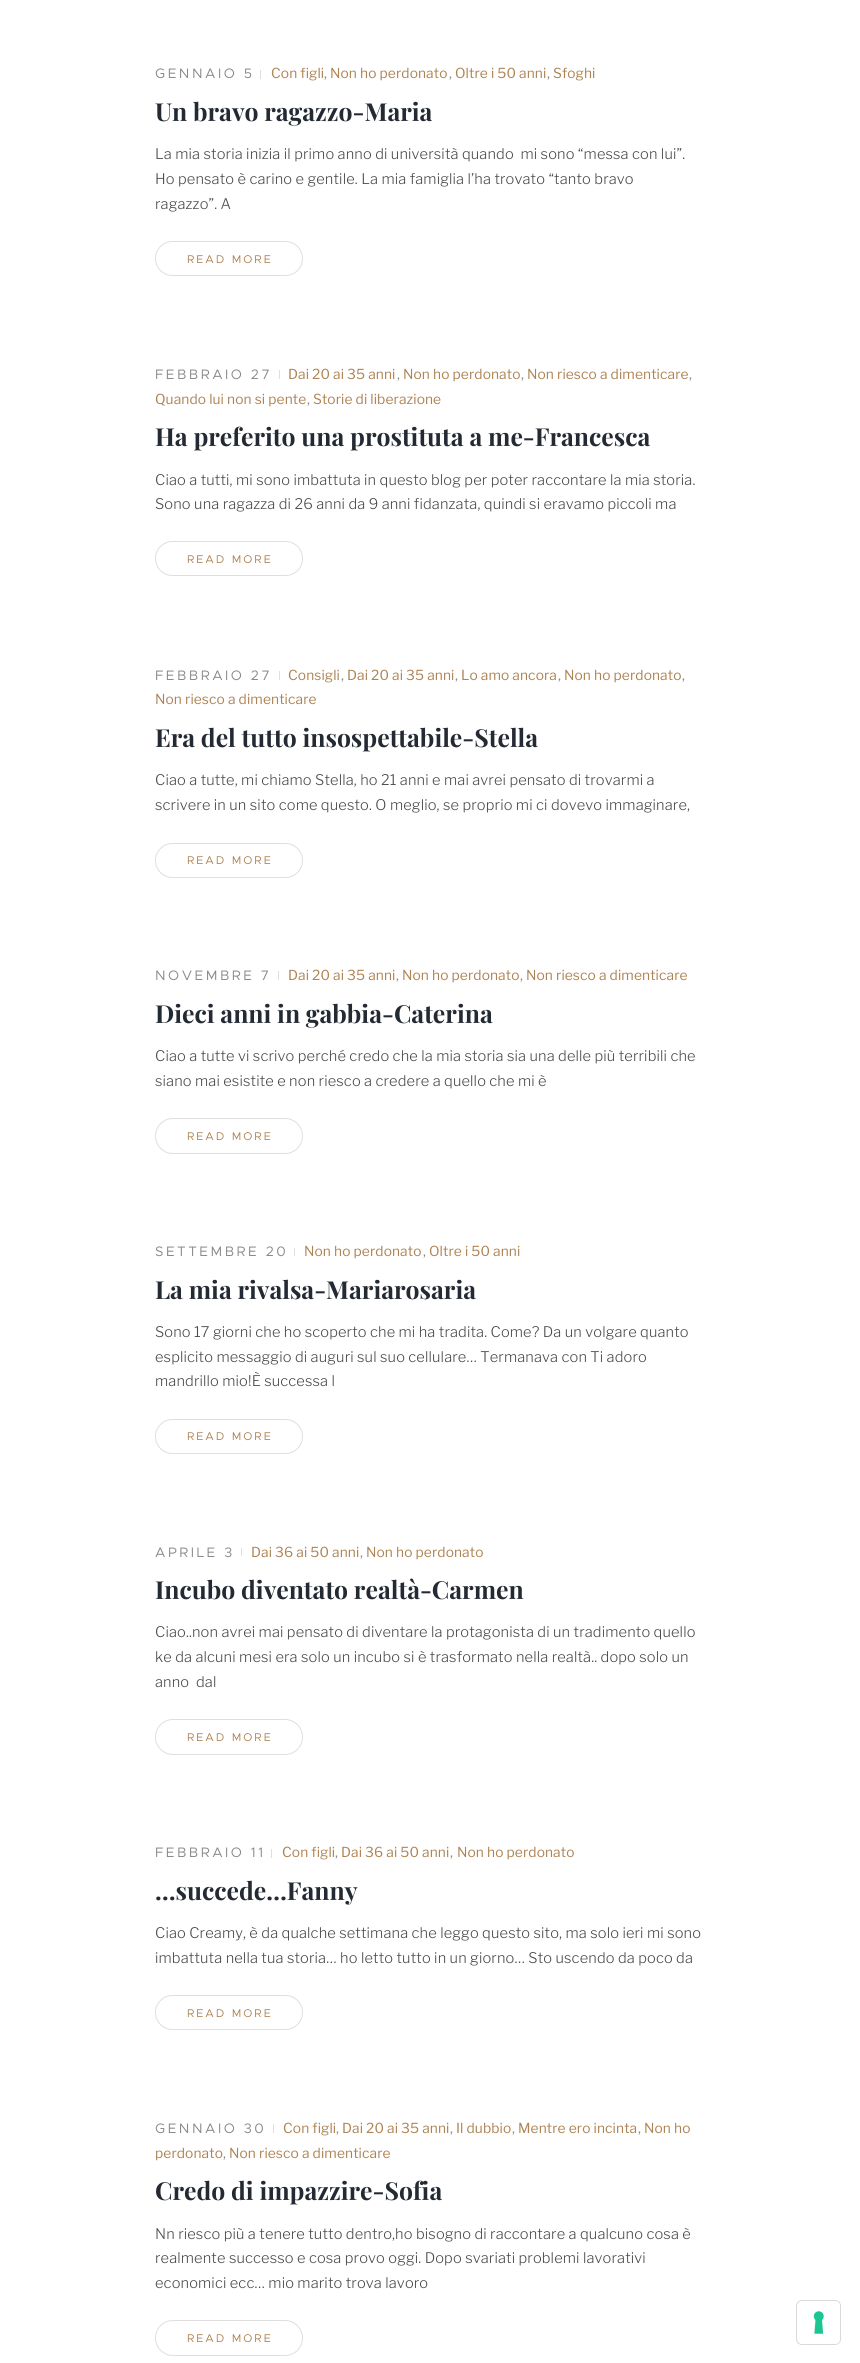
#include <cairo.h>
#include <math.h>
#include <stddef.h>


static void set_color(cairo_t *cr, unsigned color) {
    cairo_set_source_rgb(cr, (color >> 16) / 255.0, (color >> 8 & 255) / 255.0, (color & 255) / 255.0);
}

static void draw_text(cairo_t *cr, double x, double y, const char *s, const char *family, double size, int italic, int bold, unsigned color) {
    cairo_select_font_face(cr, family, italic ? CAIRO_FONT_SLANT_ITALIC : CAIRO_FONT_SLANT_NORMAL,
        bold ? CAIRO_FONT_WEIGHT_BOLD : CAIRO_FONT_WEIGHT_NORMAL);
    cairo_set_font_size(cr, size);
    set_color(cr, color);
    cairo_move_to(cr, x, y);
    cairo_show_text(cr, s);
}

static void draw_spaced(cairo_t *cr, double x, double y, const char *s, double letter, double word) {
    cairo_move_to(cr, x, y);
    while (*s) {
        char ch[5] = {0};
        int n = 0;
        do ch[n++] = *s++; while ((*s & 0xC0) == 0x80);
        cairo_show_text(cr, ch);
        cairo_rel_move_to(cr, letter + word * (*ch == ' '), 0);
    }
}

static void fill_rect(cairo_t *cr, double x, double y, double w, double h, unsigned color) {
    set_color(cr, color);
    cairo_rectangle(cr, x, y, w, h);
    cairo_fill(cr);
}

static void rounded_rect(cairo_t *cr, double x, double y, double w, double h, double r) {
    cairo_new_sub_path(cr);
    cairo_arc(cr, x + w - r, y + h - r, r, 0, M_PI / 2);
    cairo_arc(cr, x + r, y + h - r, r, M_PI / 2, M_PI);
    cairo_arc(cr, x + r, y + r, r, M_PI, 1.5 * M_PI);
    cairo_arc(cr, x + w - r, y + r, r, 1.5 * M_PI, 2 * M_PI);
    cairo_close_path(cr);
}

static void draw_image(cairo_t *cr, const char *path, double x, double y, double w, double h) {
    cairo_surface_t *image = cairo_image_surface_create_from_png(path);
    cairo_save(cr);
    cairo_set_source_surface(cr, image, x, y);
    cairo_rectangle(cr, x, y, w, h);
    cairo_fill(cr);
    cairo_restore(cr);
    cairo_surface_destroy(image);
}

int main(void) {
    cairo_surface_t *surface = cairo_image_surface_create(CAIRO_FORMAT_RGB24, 860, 2363);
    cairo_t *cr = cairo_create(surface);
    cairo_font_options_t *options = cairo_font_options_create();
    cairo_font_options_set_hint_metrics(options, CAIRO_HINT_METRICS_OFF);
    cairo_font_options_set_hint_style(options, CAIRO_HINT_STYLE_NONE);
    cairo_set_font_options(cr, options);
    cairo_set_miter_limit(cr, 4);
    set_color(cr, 0xFFFFFF);
    cairo_paint(cr);
    cairo_select_font_face(cr, "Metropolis", CAIRO_FONT_SLANT_NORMAL, CAIRO_FONT_WEIGHT_NORMAL);
    cairo_set_font_size(cr, 13.75);
    set_color(cr, 0x8A8A8A);
    draw_spaced(cr, 155, 78, "GENNAIO 5", 2.5, 0);
    fill_rect(cr, 260, 70, 1, 9, 0xDFDFDF);
    cairo_select_font_face(cr, "Libre Franklin", CAIRO_FONT_SLANT_NORMAL, CAIRO_FONT_WEIGHT_NORMAL);
    set_color(cr, 0xAD8353);
    draw_spaced(cr, 271, 78, "Con figli", 0.1, 0);
    set_color(cr, 0x8A8A8A);
    draw_spaced(cr, 324, 78, ",", 0.1, 0);
    set_color(cr, 0xAD8353);
    draw_spaced(cr, 330, 78, "Non ho perdonato", 0.1, 0);
    set_color(cr, 0x8A8A8A);
    draw_spaced(cr, 449, 78, ",", 0.1, 0);
    set_color(cr, 0xAD8353);
    draw_spaced(cr, 455, 78, "Oltre i 50 anni", 0.1, 0);
    set_color(cr, 0x8A8A8A);
    draw_spaced(cr, 547, 78, ",", 0.1, 0);
    set_color(cr, 0xAD8353);
    draw_spaced(cr, 553, 78, "Sfoghi", 0.1, 0);
    draw_text(cr, 155, 121, "Un bravo ragazzo-Maria", "Playfair Display", 24.75, 0, 1, 0x242A33);
    cairo_select_font_face(cr, "Libre Franklin Light", CAIRO_FONT_SLANT_NORMAL, CAIRO_FONT_WEIGHT_NORMAL);
    cairo_set_font_size(cr, 14.6);
    set_color(cr, 0x484B4D);
    draw_spaced(cr, 155, 159, "La mia storia inizia il primo anno di università quando  mi sono “messa con lui”.", 0.15, 0);
    draw_spaced(cr, 155, 184, "Ho pensato è carino e gentile. La mia famiglia l’ha trovato “tanto bravo", 0.15, 0);
    draw_spaced(cr, 155, 209, "ragazzo”. A", 0.15, 0);
    rounded_rect(cr, 155.5, 241.5, 147, 34, 17);
    set_color(cr, 0xDFDFDF);
    cairo_set_line_width(cr, 1);
    cairo_stroke(cr);
    cairo_select_font_face(cr, "Metropolis", CAIRO_FONT_SLANT_NORMAL, CAIRO_FONT_WEIGHT_NORMAL);
    cairo_set_font_size(cr, 11.25);
    set_color(cr, 0xAD8353);
    draw_spaced(cr, 187, 263, "READ MORE", 2, 0);
    fill_rect(cr, 279, 370, 1, 9, 0xDFDFDF);
    cairo_select_font_face(cr, "Libre Franklin", CAIRO_FONT_SLANT_NORMAL, CAIRO_FONT_WEIGHT_NORMAL);
    cairo_set_font_size(cr, 13.75);
    set_color(cr, 0xAD8353);
    draw_spaced(cr, 288, 379, "Dai 20 ai 35 anni", 0.1, 0);
    set_color(cr, 0x8A8A8A);
    draw_spaced(cr, 397, 379, ",", 0.1, 0);
    set_color(cr, 0xAD8353);
    draw_spaced(cr, 403, 379, "Non ho perdonato", 0.1, 0);
    set_color(cr, 0x8A8A8A);
    draw_spaced(cr, 521, 379, ",", 0.1, 0);
    set_color(cr, 0xAD8353);
    draw_spaced(cr, 527, 379, "Non riesco a dimenticare", 0.1, 0);
    set_color(cr, 0x8A8A8A);
    draw_spaced(cr, 689, 379, ",", 0.1, 0);
    set_color(cr, 0xAD8353);
    draw_spaced(cr, 155, 404, "Quando lui non si pente", 0.1, 0);
    set_color(cr, 0x8A8A8A);
    draw_spaced(cr, 307, 404, ",", 0.1, 0);
    set_color(cr, 0xAD8353);
    draw_spaced(cr, 313, 404, "Storie di liberazione", 0.1, 0);
    cairo_select_font_face(cr, "Metropolis", CAIRO_FONT_SLANT_NORMAL, CAIRO_FONT_WEIGHT_NORMAL);
    set_color(cr, 0x8A8A8A);
    draw_spaced(cr, 155, 379, "FEBBRAIO 27", 2.5, 0);
    draw_text(cr, 155, 446, "Ha preferito una prostituta a me-Francesca", "Playfair Display", 24.75, 0, 1, 0x242A33);
    cairo_select_font_face(cr, "Libre Franklin Light", CAIRO_FONT_SLANT_NORMAL, CAIRO_FONT_WEIGHT_NORMAL);
    cairo_set_font_size(cr, 14.6);
    set_color(cr, 0x484B4D);
    draw_spaced(cr, 155, 485, "Ciao a tutti, mi sono imbattuta in questo blog per poter raccontare la mia storia.", 0.15, 0);
    draw_spaced(cr, 155, 509, "Sono una ragazza di 26 anni da 9 anni fidanzata, quindi si eravamo piccoli ma", 0.15, 0);
    rounded_rect(cr, 155.5, 541.5, 147, 34, 17);
    set_color(cr, 0xDFDFDF);
    cairo_stroke(cr);
    cairo_select_font_face(cr, "Metropolis", CAIRO_FONT_SLANT_NORMAL, CAIRO_FONT_WEIGHT_NORMAL);
    cairo_set_font_size(cr, 11.25);
    set_color(cr, 0xAD8353);
    draw_spaced(cr, 187, 563, "READ MORE", 2, 0);
    fill_rect(cr, 279, 671, 1, 9, 0xDFDFDF);
    cairo_select_font_face(cr, "Libre Franklin", CAIRO_FONT_SLANT_NORMAL, CAIRO_FONT_WEIGHT_NORMAL);
    cairo_set_font_size(cr, 13.75);
    set_color(cr, 0xAD8353);
    draw_spaced(cr, 288, 680, "Consigli", 0.1, 0);
    set_color(cr, 0x8A8A8A);
    draw_spaced(cr, 341, 680, ",", 0.1, 0);
    set_color(cr, 0xAD8353);
    draw_spaced(cr, 347, 680, "Dai 20 ai 35 anni", 0.1, 0);
    set_color(cr, 0x8A8A8A);
    draw_spaced(cr, 455, 680, ",", 0.1, 0);
    set_color(cr, 0xAD8353);
    draw_spaced(cr, 461, 680, "Lo amo ancora", 0.1, 0);
    set_color(cr, 0x8A8A8A);
    draw_spaced(cr, 558, 680, ",", 0.1, 0);
    set_color(cr, 0xAD8353);
    draw_spaced(cr, 564, 680, "Non ho perdonato", 0.1, 0);
    set_color(cr, 0x8A8A8A);
    draw_spaced(cr, 682, 680, ",", 0.1, 0);
    set_color(cr, 0xAD8353);
    draw_spaced(cr, 155, 704, "Non riesco a dimenticare", 0.1, 0);
    cairo_select_font_face(cr, "Metropolis", CAIRO_FONT_SLANT_NORMAL, CAIRO_FONT_WEIGHT_NORMAL);
    set_color(cr, 0x8A8A8A);
    draw_spaced(cr, 155, 680, "FEBBRAIO 27", 2.5, 0);
    draw_text(cr, 155, 747, "Era del tutto insospettabile-Stella", "Playfair Display", 24.75, 0, 1, 0x242A33);
    cairo_select_font_face(cr, "Libre Franklin Light", CAIRO_FONT_SLANT_NORMAL, CAIRO_FONT_WEIGHT_NORMAL);
    cairo_set_font_size(cr, 14.6);
    set_color(cr, 0x484B4D);
    draw_spaced(cr, 155, 785, "Ciao a tutte, mi chiamo Stella, ho 21 anni e mai avrei pensato di trovarmi a", 0.15, 0);
    draw_spaced(cr, 155, 810, "scrivere in un sito come questo. O meglio, se proprio mi ci dovevo immaginare,", 0.15, 0);
    rounded_rect(cr, 155.5, 843.5, 147, 34, 17);
    set_color(cr, 0xDFDFDF);
    cairo_stroke(cr);
    cairo_select_font_face(cr, "Metropolis", CAIRO_FONT_SLANT_NORMAL, CAIRO_FONT_WEIGHT_NORMAL);
    cairo_set_font_size(cr, 11.25);
    set_color(cr, 0xAD8353);
    draw_spaced(cr, 187, 864, "READ MORE", 2, 0);
    cairo_set_font_size(cr, 13.75);
    set_color(cr, 0x8A8A8A);
    draw_spaced(cr, 155, 980, "NOVEMBRE 7", 2.5, 0);
    fill_rect(cr, 278, 971, 1, 9, 0xDFDFDF);
    cairo_select_font_face(cr, "Libre Franklin", CAIRO_FONT_SLANT_NORMAL, CAIRO_FONT_WEIGHT_NORMAL);
    set_color(cr, 0xAD8353);
    draw_spaced(cr, 288, 980, "Dai 20 ai 35 anni", 0.1, 0);
    set_color(cr, 0x8A8A8A);
    draw_spaced(cr, 396, 980, ",", 0.1, 0);
    set_color(cr, 0xAD8353);
    draw_spaced(cr, 402, 980, "Non ho perdonato", 0.1, 0);
    set_color(cr, 0x8A8A8A);
    draw_spaced(cr, 520, 980, ",", 0.1, 0);
    set_color(cr, 0xAD8353);
    draw_spaced(cr, 526, 980, "Non riesco a dimenticare", 0.1, 0);
    draw_text(cr, 155, 1023, "Dieci anni in gabbia-Caterina", "Playfair Display", 24.75, 0, 1, 0x242A33);
    cairo_select_font_face(cr, "Libre Franklin Light", CAIRO_FONT_SLANT_NORMAL, CAIRO_FONT_WEIGHT_NORMAL);
    cairo_set_font_size(cr, 14.6);
    set_color(cr, 0x484B4D);
    draw_spaced(cr, 155, 1061, "Ciao a tutte vi scrivo perché credo che la mia storia sia una delle più terribili che", 0.15, 0);
    draw_spaced(cr, 155, 1086, "siano mai esistite e non riesco a credere a quello che mi è", 0.15, 0);
    rounded_rect(cr, 155.5, 1118.5, 147, 35, 17.5);
    set_color(cr, 0xDFDFDF);
    cairo_stroke(cr);
    cairo_select_font_face(cr, "Metropolis", CAIRO_FONT_SLANT_NORMAL, CAIRO_FONT_WEIGHT_NORMAL);
    cairo_set_font_size(cr, 11.25);
    set_color(cr, 0xAD8353);
    draw_spaced(cr, 187, 1140, "READ MORE", 2, 0);
    cairo_set_font_size(cr, 13.75);
    set_color(cr, 0x8A8A8A);
    draw_spaced(cr, 155, 1256, "SETTEMBRE 20", 2.5, 0);
    fill_rect(cr, 294, 1248, 1, 8, 0xDFDFDF);
    cairo_select_font_face(cr, "Libre Franklin", CAIRO_FONT_SLANT_NORMAL, CAIRO_FONT_WEIGHT_NORMAL);
    set_color(cr, 0xAD8353);
    draw_spaced(cr, 304, 1256, "Non ho perdonato", 0.1, 0);
    set_color(cr, 0x8A8A8A);
    draw_spaced(cr, 423, 1256, ",", 0.1, 0);
    set_color(cr, 0xAD8353);
    draw_spaced(cr, 429, 1256, "Oltre i 50 anni", 0.1, 0);
    draw_text(cr, 155, 1299, "La mia rivalsa-Mariarosaria", "Playfair Display", 24.75, 0, 1, 0x242A33);
    cairo_select_font_face(cr, "Libre Franklin Light", CAIRO_FONT_SLANT_NORMAL, CAIRO_FONT_WEIGHT_NORMAL);
    cairo_set_font_size(cr, 14.6);
    set_color(cr, 0x484B4D);
    draw_spaced(cr, 155, 1337, "Sono 17 giorni che ho scoperto che mi ha tradita. Come? Da un volgare quanto", 0.15, 0);
    draw_spaced(cr, 155, 1362, "esplicito messaggio di auguri sul suo cellulare… Termanava con Ti adoro", 0.15, 0);
    draw_spaced(cr, 155, 1386, "mandrillo mio!È successa l", 0.15, 0);
    rounded_rect(cr, 155.5, 1419.5, 147, 34, 17);
    set_color(cr, 0xDFDFDF);
    cairo_stroke(cr);
    cairo_select_font_face(cr, "Metropolis", CAIRO_FONT_SLANT_NORMAL, CAIRO_FONT_WEIGHT_NORMAL);
    cairo_set_font_size(cr, 11.25);
    set_color(cr, 0xAD8353);
    draw_spaced(cr, 187, 1440, "READ MORE", 2, 0);
    cairo_set_font_size(cr, 13.75);
    set_color(cr, 0x8A8A8A);
    draw_spaced(cr, 155, 1557, "APRILE 3", 2.5, 0);
    fill_rect(cr, 241, 1548, 1, 8, 0xDFDFDF);
    cairo_select_font_face(cr, "Libre Franklin", CAIRO_FONT_SLANT_NORMAL, CAIRO_FONT_WEIGHT_NORMAL);
    set_color(cr, 0xAD8353);
    draw_spaced(cr, 251, 1557, "Dai 36 ai 50 anni", 0.1, 0);
    draw_spaced(cr, 366, 1557, "Non ho perdonato", 0.1, 0);
    set_color(cr, 0x8A8A8A);
    draw_spaced(cr, 360, 1557, ",", 0.1, 0);
    draw_text(cr, 155, 1599, "Incubo diventato realtà-Carmen", "Playfair Display", 24.75, 0, 1, 0x242A33);
    cairo_select_font_face(cr, "Libre Franklin Light", CAIRO_FONT_SLANT_NORMAL, CAIRO_FONT_WEIGHT_NORMAL);
    cairo_set_font_size(cr, 14.6);
    set_color(cr, 0x484B4D);
    draw_spaced(cr, 155, 1637, "Ciao..non avrei mai pensato di diventare la protagonista di un tradimento quello", 0.15, 0);
    draw_spaced(cr, 155, 1662, "ke da alcuni mesi era solo un incubo si è trasformato nella realtà.. dopo solo un", 0.15, 0);
    draw_spaced(cr, 155, 1687, "anno", 0.15, 0);
    draw_spaced(cr, 196, 1687, "dal", 0.15, 0);
    rounded_rect(cr, 155.5, 1719.5, 147, 35, 17.5);
    set_color(cr, 0xDFDFDF);
    cairo_stroke(cr);
    cairo_select_font_face(cr, "Metropolis", CAIRO_FONT_SLANT_NORMAL, CAIRO_FONT_WEIGHT_NORMAL);
    cairo_set_font_size(cr, 11.25);
    set_color(cr, 0xAD8353);
    draw_spaced(cr, 187, 1741, "READ MORE", 2, 0);
    cairo_set_font_size(cr, 13.75);
    set_color(cr, 0x8A8A8A);
    draw_spaced(cr, 155, 1857, "FEBBRAIO 11", 2.5, 0);
    fill_rect(cr, 271, 1849, 1, 9, 0xDFDFDF);
    cairo_select_font_face(cr, "Libre Franklin", CAIRO_FONT_SLANT_NORMAL, CAIRO_FONT_WEIGHT_NORMAL);
    set_color(cr, 0xAD8353);
    draw_spaced(cr, 282, 1857, "Con figli", 0.1, 0);
    set_color(cr, 0x8A8A8A);
    draw_spaced(cr, 335, 1857, ",", 0.1, 0);
    set_color(cr, 0xAD8353);
    draw_spaced(cr, 341, 1857, "Dai 36 ai 50 anni", 0.1, 0);
    set_color(cr, 0x8A8A8A);
    draw_spaced(cr, 450, 1857, ",", 0.1, 0);
    set_color(cr, 0xAD8353);
    draw_spaced(cr, 457, 1857, "Non ho perdonato", 0.1, 0);
    draw_text(cr, 155, 1900, "…succede…Fanny", "Playfair Display", 24.75, 0, 1, 0x242A33);
    cairo_select_font_face(cr, "Libre Franklin Light", CAIRO_FONT_SLANT_NORMAL, CAIRO_FONT_WEIGHT_NORMAL);
    cairo_set_font_size(cr, 14.6);
    set_color(cr, 0x484B4D);
    draw_spaced(cr, 155, 1938, "Ciao Creamy, è da qualche settimana che leggo questo sito, ma solo ieri mi sono", 0.15, 0);
    draw_spaced(cr, 155, 1963, "imbattuta nella tua storia… ho letto tutto in un giorno… Sto uscendo da poco da", 0.15, 0);
    rounded_rect(cr, 155.5, 1995.5, 147, 34, 17);
    set_color(cr, 0xDFDFDF);
    cairo_stroke(cr);
    cairo_select_font_face(cr, "Metropolis", CAIRO_FONT_SLANT_NORMAL, CAIRO_FONT_WEIGHT_NORMAL);
    cairo_set_font_size(cr, 11.25);
    set_color(cr, 0xAD8353);
    draw_spaced(cr, 187, 2017, "READ MORE", 2, 0);
    fill_rect(cr, 273, 2124, 1, 9, 0xDFDFDF);
    cairo_select_font_face(cr, "Libre Franklin", CAIRO_FONT_SLANT_NORMAL, CAIRO_FONT_WEIGHT_NORMAL);
    cairo_set_font_size(cr, 13.75);
    set_color(cr, 0xAD8353);
    draw_spaced(cr, 283, 2133, "Con figli", 0.1, 0);
    set_color(cr, 0x8A8A8A);
    draw_spaced(cr, 336, 2133, ",", 0.1, 0);
    set_color(cr, 0xAD8353);
    draw_spaced(cr, 342, 2133, "Dai 20 ai 35 anni", 0.1, 0);
    set_color(cr, 0x8A8A8A);
    draw_spaced(cr, 450, 2133, ",", 0.1, 0);
    set_color(cr, 0xAD8353);
    draw_spaced(cr, 456, 2133, "Il dubbio", 0.1, 0);
    set_color(cr, 0x8A8A8A);
    draw_spaced(cr, 512, 2133, ",", 0.1, 0);
    set_color(cr, 0xAD8353);
    draw_spaced(cr, 518, 2133, "Mentre ero incinta", 0.1, 0);
    set_color(cr, 0x8A8A8A);
    draw_spaced(cr, 638, 2133, ",", 0.1, 0);
    set_color(cr, 0xAD8353);
    draw_spaced(cr, 644, 2133, "Non ho", 0.1, 0);
    draw_spaced(cr, 155, 2158, "perdonato", 0.1, 0);
    set_color(cr, 0x8A8A8A);
    draw_spaced(cr, 223, 2158, ",", 0.1, 0);
    set_color(cr, 0xAD8353);
    draw_spaced(cr, 229, 2158, "Non riesco a dimenticare", 0.1, 0);
    cairo_select_font_face(cr, "Metropolis", CAIRO_FONT_SLANT_NORMAL, CAIRO_FONT_WEIGHT_NORMAL);
    set_color(cr, 0x8A8A8A);
    draw_spaced(cr, 155, 2133, "GENNAIO 30", 2.5, 0);
    draw_text(cr, 155, 2200, "Credo di impazzire-Sofia", "Playfair Display", 24.75, 0, 1, 0x242A33);
    cairo_select_font_face(cr, "Libre Franklin Light", CAIRO_FONT_SLANT_NORMAL, CAIRO_FONT_WEIGHT_NORMAL);
    cairo_set_font_size(cr, 14.6);
    set_color(cr, 0x484B4D);
    draw_spaced(cr, 155, 2239, "Nn riesco più a tenere tutto dentro,ho bisogno di raccontare a qualcuno cosa è", 0.15, 0);
    draw_spaced(cr, 155, 2263, "realmente successo e cosa provo oggi. Dopo svariati problemi lavorativi", 0.15, 0);
    draw_spaced(cr, 155, 2288, "economici ecc… mio marito trova lavoro", 0.15, 0);
    rounded_rect(cr, 155.5, 2320.5, 147, 35, 17.5);
    set_color(cr, 0xDFDFDF);
    cairo_stroke(cr);
    cairo_select_font_face(cr, "Metropolis", CAIRO_FONT_SLANT_NORMAL, CAIRO_FONT_WEIGHT_NORMAL);
    cairo_set_font_size(cr, 11.25);
    set_color(cr, 0xAD8353);
    draw_spaced(cr, 187, 2342, "READ MORE", 2, 0);
    rounded_rect(cr, 796.5, 2300.5, 44, 44, 5.5);
    set_color(cr, 0xD9D9D9);
    cairo_stroke(cr);
    set_color(cr, 0xFFFFFF);
    rounded_rect(cr, 798, 2301, 42, 43, 5);
    cairo_fill(cr);
    draw_image(cr, "assets/img1.png", 813, 2311, 11, 23);
    cairo_surface_write_to_png(surface, "output.png");
    cairo_font_options_destroy(options);
    cairo_destroy(cr);
    cairo_surface_destroy(surface);
    return 0;
}
